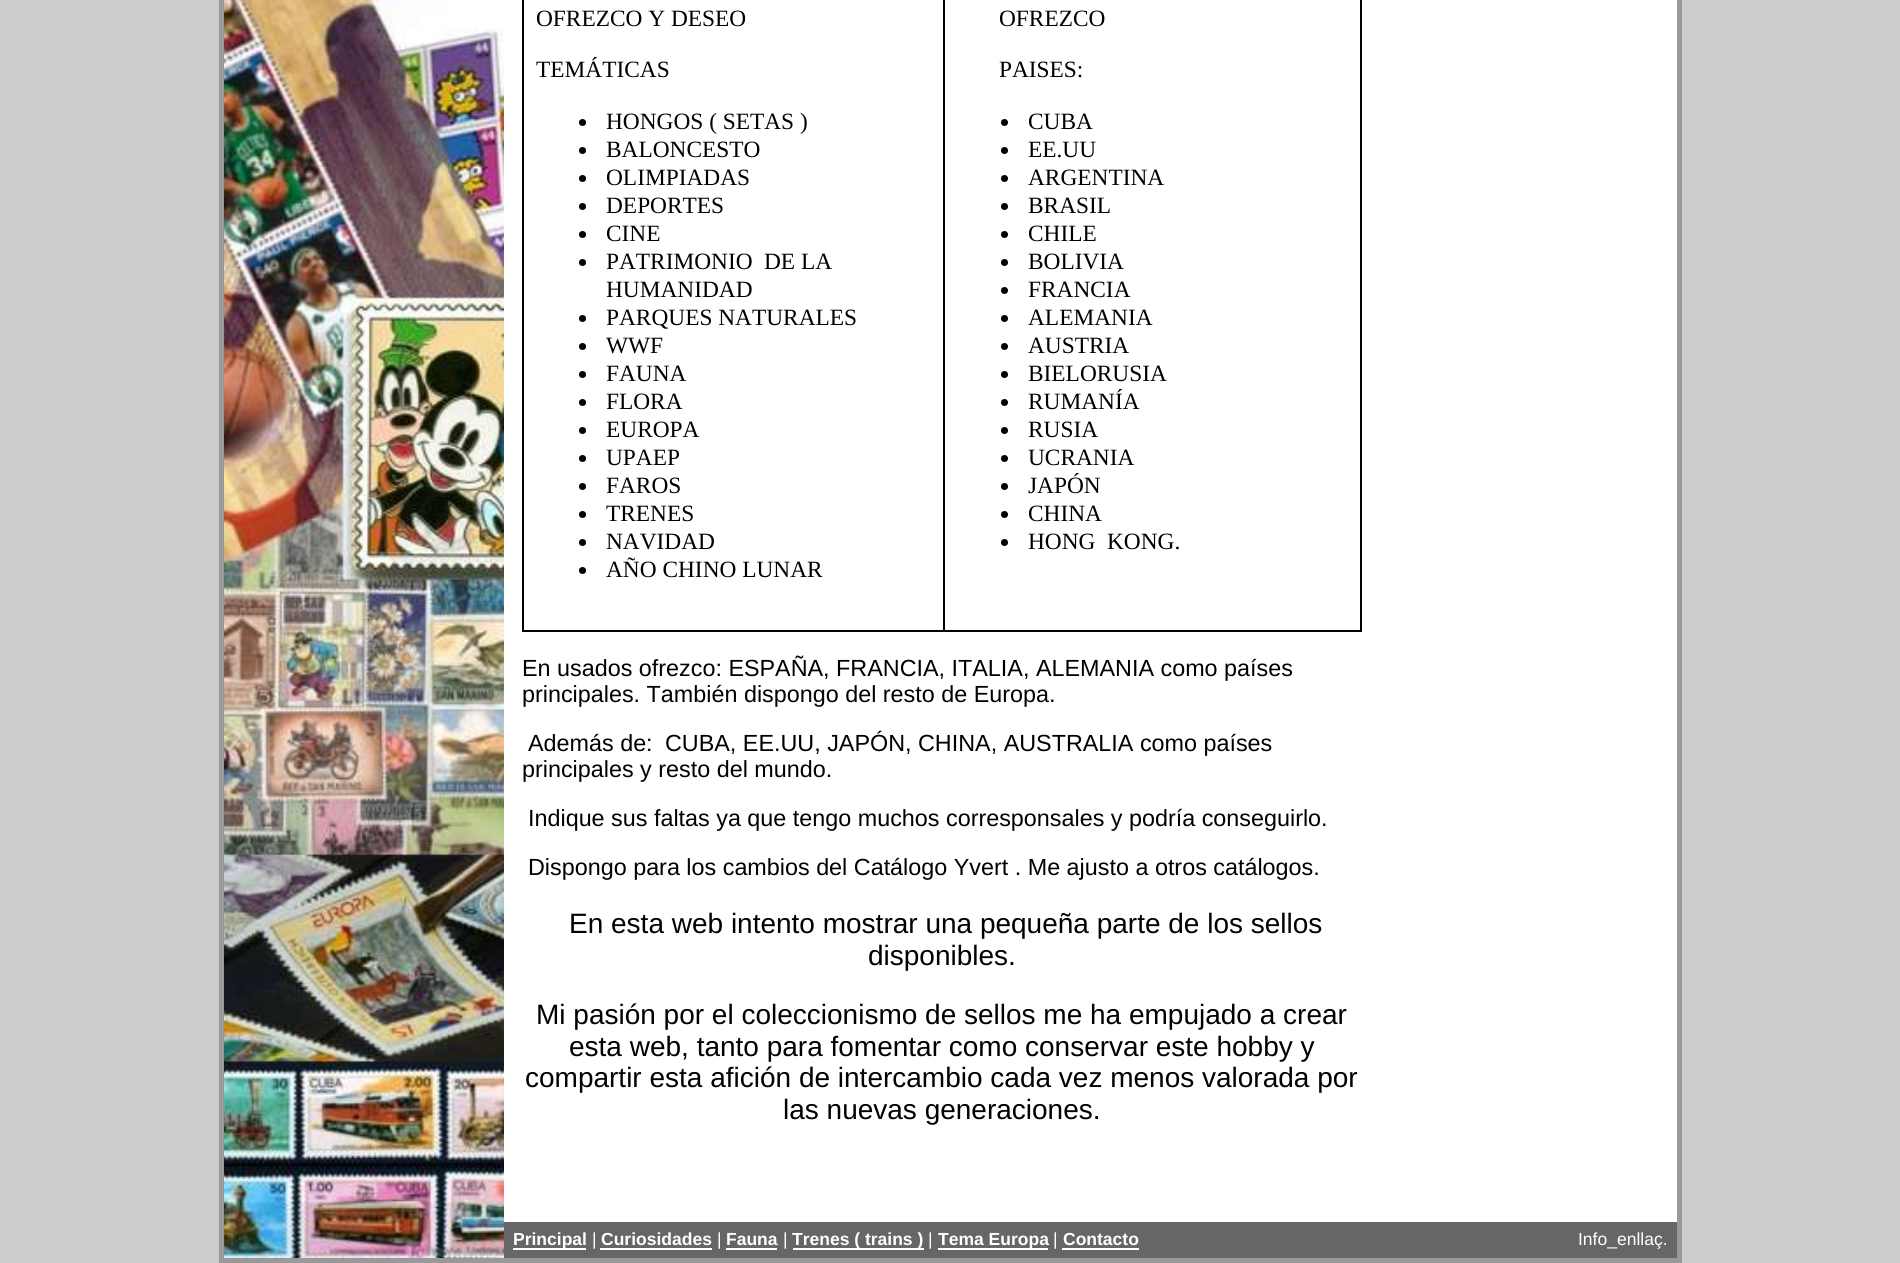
#include <cairo.h>
#include <math.h>
#include <stddef.h>


static void set_color(cairo_t *cr, unsigned color) {
    cairo_set_source_rgb(cr, (color >> 16) / 255.0, (color >> 8 & 255) / 255.0, (color & 255) / 255.0);
}

static void draw_text(cairo_t *cr, double x, double y, const char *s, const char *family, double size, int italic, int bold, unsigned color) {
    cairo_select_font_face(cr, family, italic ? CAIRO_FONT_SLANT_ITALIC : CAIRO_FONT_SLANT_NORMAL,
        bold ? CAIRO_FONT_WEIGHT_BOLD : CAIRO_FONT_WEIGHT_NORMAL);
    cairo_set_font_size(cr, size);
    set_color(cr, color);
    cairo_move_to(cr, x, y);
    cairo_show_text(cr, s);
}

static void fill_rect(cairo_t *cr, double x, double y, double w, double h, unsigned color) {
    set_color(cr, color);
    cairo_rectangle(cr, x, y, w, h);
    cairo_fill(cr);
}

static void draw_image(cairo_t *cr, const char *path, double x, double y, double w, double h) {
    cairo_surface_t *image = cairo_image_surface_create_from_png(path);
    cairo_save(cr);
    cairo_set_source_surface(cr, image, x, y);
    cairo_rectangle(cr, x, y, w, h);
    cairo_fill(cr);
    cairo_restore(cr);
    cairo_surface_destroy(image);
}

int main(void) {
    cairo_surface_t *surface = cairo_image_surface_create(CAIRO_FORMAT_RGB24, 1900, 1263);
    cairo_t *cr = cairo_create(surface);
    cairo_font_options_t *options = cairo_font_options_create();
    cairo_font_options_set_hint_metrics(options, CAIRO_HINT_METRICS_OFF);
    cairo_font_options_set_hint_style(options, CAIRO_HINT_STYLE_NONE);
    cairo_set_font_options(cr, options);
    cairo_set_miter_limit(cr, 4);
    set_color(cr, 0xCCCCCC);
    cairo_paint(cr);
    draw_image(cr, "assets/img1.png", 224, 0, 280, 1258);
    fill_rect(cr, 1677, 0, 5, 1263, 0x999999);
    fill_rect(cr, 219, 1258, 1463, 5, 0x999999);
    fill_rect(cr, 219, 0, 5, 1263, 0x999999);
    fill_rect(cr, 504, 0, 1173, 1222, 0xFFFFFF);
    fill_rect(cr, 1360, 0, 2, 632, 0x000000);
    fill_rect(cr, 943, 630, 419, 2, 0x000000);
    fill_rect(cr, 943, 0, 2, 632, 0x000000);
    fill_rect(cr, 522, 630, 423, 2, 0x000000);
    fill_rect(cr, 522, 0, 2, 632, 0x000000);
    draw_text(cr, 536, 26, "OFREZCO Y DESEO", "Liberation Serif", 23.35, 0, 0, 0x000000);
    draw_text(cr, 536, 77, "TEMÁTICAS", "Liberation Serif", 23.35, 0, 0, 0x000000);
    cairo_new_path(cr);
    cairo_arc(cr, 582.5, 122.5, 3.5, 0, 2 * M_PI);
    cairo_fill(cr);
    draw_text(cr, 606, 129, "HONGOS ( SETAS )", "Liberation Serif", 23.35, 0, 0, 0x000000);
    cairo_new_path(cr);
    cairo_arc(cr, 582.5, 150.5, 3.5, 0, 2 * M_PI);
    cairo_fill(cr);
    draw_text(cr, 606, 157, "BALONCESTO", "Liberation Serif", 23.35, 0, 0, 0x000000);
    cairo_new_path(cr);
    cairo_arc(cr, 582.5, 178.5, 3.5, 0, 2 * M_PI);
    cairo_fill(cr);
    draw_text(cr, 606, 185, "OLIMPIADAS", "Liberation Serif", 23.35, 0, 0, 0x000000);
    cairo_new_path(cr);
    cairo_arc(cr, 582.5, 206.5, 3.5, 0, 2 * M_PI);
    cairo_fill(cr);
    draw_text(cr, 606, 213, "DEPORTES", "Liberation Serif", 23.35, 0, 0, 0x000000);
    cairo_new_path(cr);
    cairo_arc(cr, 582.5, 234.5, 3.5, 0, 2 * M_PI);
    cairo_fill(cr);
    draw_text(cr, 606, 241, "CINE", "Liberation Serif", 23.35, 0, 0, 0x000000);
    cairo_new_path(cr);
    cairo_arc(cr, 582.5, 262.5, 3.5, 0, 2 * M_PI);
    cairo_fill(cr);
    draw_text(cr, 606, 269, "PATRIMONIO", "Liberation Serif", 23.35, 0, 0, 0x000000);
    draw_text(cr, 764, 269, "DE LA", "Liberation Serif", 23.35, 0, 0, 0x000000);
    draw_text(cr, 606, 297, "HUMANIDAD", "Liberation Serif", 23.35, 0, 0, 0x000000);
    cairo_new_path(cr);
    cairo_arc(cr, 582.5, 318.5, 3.5, 0, 2 * M_PI);
    cairo_fill(cr);
    draw_text(cr, 606, 325, "PARQUES NATURALES", "Liberation Serif", 23.35, 0, 0, 0x000000);
    cairo_new_path(cr);
    cairo_arc(cr, 582.5, 346.5, 3.5, 0, 2 * M_PI);
    cairo_fill(cr);
    draw_text(cr, 606, 353, "WWF", "Liberation Serif", 23.35, 0, 0, 0x000000);
    cairo_new_path(cr);
    cairo_arc(cr, 582.5, 374.5, 3.5, 0, 2 * M_PI);
    cairo_fill(cr);
    draw_text(cr, 606, 381, "FAUNA", "Liberation Serif", 23.35, 0, 0, 0x000000);
    cairo_new_path(cr);
    cairo_arc(cr, 582.5, 402.5, 3.5, 0, 2 * M_PI);
    cairo_fill(cr);
    draw_text(cr, 606, 409, "FLORA", "Liberation Serif", 23.35, 0, 0, 0x000000);
    cairo_new_path(cr);
    cairo_arc(cr, 582.5, 430.5, 3.5, 0, 2 * M_PI);
    cairo_fill(cr);
    draw_text(cr, 606, 437, "EUROPA", "Liberation Serif", 23.35, 0, 0, 0x000000);
    cairo_new_path(cr);
    cairo_arc(cr, 582.5, 458.5, 3.5, 0, 2 * M_PI);
    cairo_fill(cr);
    draw_text(cr, 606, 465, "UPAEP", "Liberation Serif", 23.35, 0, 0, 0x000000);
    cairo_new_path(cr);
    cairo_arc(cr, 582.5, 486.5, 3.5, 0, 2 * M_PI);
    cairo_fill(cr);
    draw_text(cr, 606, 493, "FAROS", "Liberation Serif", 23.35, 0, 0, 0x000000);
    cairo_new_path(cr);
    cairo_arc(cr, 582.5, 514.5, 3.5, 0, 2 * M_PI);
    cairo_fill(cr);
    draw_text(cr, 606, 521, "TRENES", "Liberation Serif", 23.35, 0, 0, 0x000000);
    cairo_new_path(cr);
    cairo_arc(cr, 582.5, 542.5, 3.5, 0, 2 * M_PI);
    cairo_fill(cr);
    draw_text(cr, 606, 549, "NAVIDAD", "Liberation Serif", 23.35, 0, 0, 0x000000);
    cairo_new_path(cr);
    cairo_arc(cr, 582.5, 570.5, 3.5, 0, 2 * M_PI);
    cairo_fill(cr);
    draw_text(cr, 606, 577, "AÑO CHINO LUNAR", "Liberation Serif", 23.35, 0, 0, 0x000000);
    draw_text(cr, 999, 26, "OFREZCO", "Liberation Serif", 23.35, 0, 0, 0x000000);
    draw_text(cr, 999, 77, "PAISES:", "Liberation Serif", 23.35, 0, 0, 0x000000);
    cairo_new_path(cr);
    cairo_arc(cr, 1004.5, 122.5, 3.5, 0, 2 * M_PI);
    cairo_fill(cr);
    draw_text(cr, 1028, 129, "CUBA", "Liberation Serif", 23.35, 0, 0, 0x000000);
    cairo_new_path(cr);
    cairo_arc(cr, 1004.5, 150.5, 3.5, 0, 2 * M_PI);
    cairo_fill(cr);
    draw_text(cr, 1028, 157, "EE.UU", "Liberation Serif", 23.35, 0, 0, 0x000000);
    cairo_new_path(cr);
    cairo_arc(cr, 1004.5, 178.5, 3.5, 0, 2 * M_PI);
    cairo_fill(cr);
    draw_text(cr, 1028, 185, "ARGENTINA", "Liberation Serif", 23.35, 0, 0, 0x000000);
    cairo_new_path(cr);
    cairo_arc(cr, 1004.5, 206.5, 3.5, 0, 2 * M_PI);
    cairo_fill(cr);
    draw_text(cr, 1028, 213, "BRASIL", "Liberation Serif", 23.35, 0, 0, 0x000000);
    cairo_new_path(cr);
    cairo_arc(cr, 1004.5, 234.5, 3.5, 0, 2 * M_PI);
    cairo_fill(cr);
    draw_text(cr, 1028, 241, "CHILE", "Liberation Serif", 23.35, 0, 0, 0x000000);
    cairo_new_path(cr);
    cairo_arc(cr, 1004.5, 262.5, 3.5, 0, 2 * M_PI);
    cairo_fill(cr);
    draw_text(cr, 1028, 269, "BOLIVIA", "Liberation Serif", 23.35, 0, 0, 0x000000);
    cairo_new_path(cr);
    cairo_arc(cr, 1004.5, 290.5, 3.5, 0, 2 * M_PI);
    cairo_fill(cr);
    draw_text(cr, 1028, 297, "FRANCIA", "Liberation Serif", 23.35, 0, 0, 0x000000);
    cairo_new_path(cr);
    cairo_arc(cr, 1004.5, 318.5, 3.5, 0, 2 * M_PI);
    cairo_fill(cr);
    draw_text(cr, 1028, 325, "ALEMANIA", "Liberation Serif", 23.35, 0, 0, 0x000000);
    cairo_new_path(cr);
    cairo_arc(cr, 1004.5, 346.5, 3.5, 0, 2 * M_PI);
    cairo_fill(cr);
    draw_text(cr, 1028, 353, "AUSTRIA", "Liberation Serif", 23.35, 0, 0, 0x000000);
    cairo_new_path(cr);
    cairo_arc(cr, 1004.5, 374.5, 3.5, 0, 2 * M_PI);
    cairo_fill(cr);
    draw_text(cr, 1028, 381, "BIELORUSIA", "Liberation Serif", 23.35, 0, 0, 0x000000);
    cairo_new_path(cr);
    cairo_arc(cr, 1004.5, 402.5, 3.5, 0, 2 * M_PI);
    cairo_fill(cr);
    draw_text(cr, 1028, 409, "RUMANÍA", "Liberation Serif", 23.35, 0, 0, 0x000000);
    cairo_new_path(cr);
    cairo_arc(cr, 1004.5, 430.5, 3.5, 0, 2 * M_PI);
    cairo_fill(cr);
    draw_text(cr, 1028, 437, "RUSIA", "Liberation Serif", 23.35, 0, 0, 0x000000);
    cairo_new_path(cr);
    cairo_arc(cr, 1004.5, 458.5, 3.5, 0, 2 * M_PI);
    cairo_fill(cr);
    draw_text(cr, 1028, 465, "UCRANIA", "Liberation Serif", 23.35, 0, 0, 0x000000);
    cairo_new_path(cr);
    cairo_arc(cr, 1004.5, 486.5, 3.5, 0, 2 * M_PI);
    cairo_fill(cr);
    draw_text(cr, 1028, 493, "JAPÓN", "Liberation Serif", 23.35, 0, 0, 0x000000);
    cairo_new_path(cr);
    cairo_arc(cr, 1004.5, 514.5, 3.5, 0, 2 * M_PI);
    cairo_fill(cr);
    draw_text(cr, 1028, 521, "CHINA", "Liberation Serif", 23.35, 0, 0, 0x000000);
    cairo_new_path(cr);
    cairo_arc(cr, 1004.5, 542.5, 3.5, 0, 2 * M_PI);
    cairo_fill(cr);
    draw_text(cr, 1028, 549, "HONG", "Liberation Serif", 23.35, 0, 0, 0x000000);
    draw_text(cr, 1107, 549, "KONG.", "Liberation Serif", 23.35, 0, 0, 0x000000);
    draw_text(cr, 522, 676, "En usados ofrezco: ESPAÑA, FRANCIA, ITALIA, ALEMANIA como países", "Liberation Sans", 23.35, 0, 0, 0x000000);
    draw_text(cr, 522, 702, "principales. También dispongo del resto de Europa.", "Liberation Sans", 23.35, 0, 0, 0x000000);
    draw_text(cr, 528, 751, "Además de:", "Liberation Sans", 23.35, 0, 0, 0x000000);
    draw_text(cr, 665, 751, "CUBA, EE.UU, JAPÓN, CHINA, AUSTRALIA como países", "Liberation Sans", 23.35, 0, 0, 0x000000);
    draw_text(cr, 522, 777, "principales y resto del mundo.", "Liberation Sans", 23.35, 0, 0, 0x000000);
    draw_text(cr, 528, 826, "Indique sus faltas ya que tengo muchos corresponsales y podría conseguirlo.", "Liberation Sans", 23.35, 0, 0, 0x000000);
    draw_text(cr, 528, 875, "Dispongo para los cambios del Catálogo Yvert . Me ajusto a otros catálogos.", "Liberation Sans", 23.35, 0, 0, 0x000000);
    draw_text(cr, 569, 933, "En esta web intento mostrar una pequeña parte de los sellos", "Liberation Sans", 28, 0, 0, 0x000000);
    draw_text(cr, 868, 965, "disponibles.", "Liberation Sans", 28, 0, 0, 0x000000);
    draw_text(cr, 536, 1024, "Mi pasión por el coleccionismo de sellos me ha empujado a crear", "Liberation Sans", 28, 0, 0, 0x000000);
    draw_text(cr, 569, 1056, "esta web, tanto para fomentar como conservar este hobby y", "Liberation Sans", 28, 0, 0, 0x000000);
    draw_text(cr, 525, 1087, "compartir esta afición de intercambio cada vez menos valorada por", "Liberation Sans", 28, 0, 0, 0x000000);
    draw_text(cr, 783, 1119, "las nuevas generaciones.", "Liberation Sans", 28, 0, 0, 0x000000);
    fill_rect(cr, 504, 1222, 1173, 36, 0x666666);
    fill_rect(cr, 513, 1248, 73, 2, 0xFFFFFF);
    draw_text(cr, 513, 1245, "Principal", "Liberation Sans", 17.5, 0, 1, 0xFFFFFF);
    draw_text(cr, 592, 1245, "|", "Liberation Sans", 17.5, 0, 0, 0xFFFFFF);
    draw_text(cr, 601, 1245, "Curiosidades", "Liberation Sans", 17.5, 0, 1, 0xFFFFFF);
    fill_rect(cr, 600, 1248, 112, 2, 0xFFFFFF);
    draw_text(cr, 717, 1245, "|", "Liberation Sans", 17.5, 0, 0, 0xFFFFFF);
    draw_text(cr, 726, 1245, "Fauna", "Liberation Sans", 17.5, 0, 1, 0xFFFFFF);
    fill_rect(cr, 726, 1248, 51, 2, 0xFFFFFF);
    draw_text(cr, 783, 1245, "|", "Liberation Sans", 17.5, 0, 0, 0xFFFFFF);
    fill_rect(cr, 793, 1248, 131, 2, 0xFFFFFF);
    draw_text(cr, 792, 1245, "Trenes ( trains )", "Liberation Sans", 17.5, 0, 1, 0xFFFFFF);
    draw_text(cr, 928, 1245, "|", "Liberation Sans", 17.5, 0, 0, 0xFFFFFF);
    fill_rect(cr, 938, 1248, 110, 2, 0xFFFFFF);
    draw_text(cr, 938, 1245, "Tema Europa", "Liberation Sans", 17.5, 0, 1, 0xFFFFFF);
    draw_text(cr, 1053, 1245, "|", "Liberation Sans", 17.5, 0, 0, 0xFFFFFF);
    draw_text(cr, 1063, 1245, "Contacto", "Liberation Sans", 17.5, 0, 1, 0xFFFFFF);
    fill_rect(cr, 1062, 1248, 77, 2, 0xFFFFFF);
    draw_text(cr, 1578, 1245, "Info_enllaç.", "Liberation Sans", 17.5, 0, 0, 0xFFFFFF);
    cairo_surface_write_to_png(surface, "output.png");
    cairo_font_options_destroy(options);
    cairo_destroy(cr);
    cairo_surface_destroy(surface);
    return 0;
}
